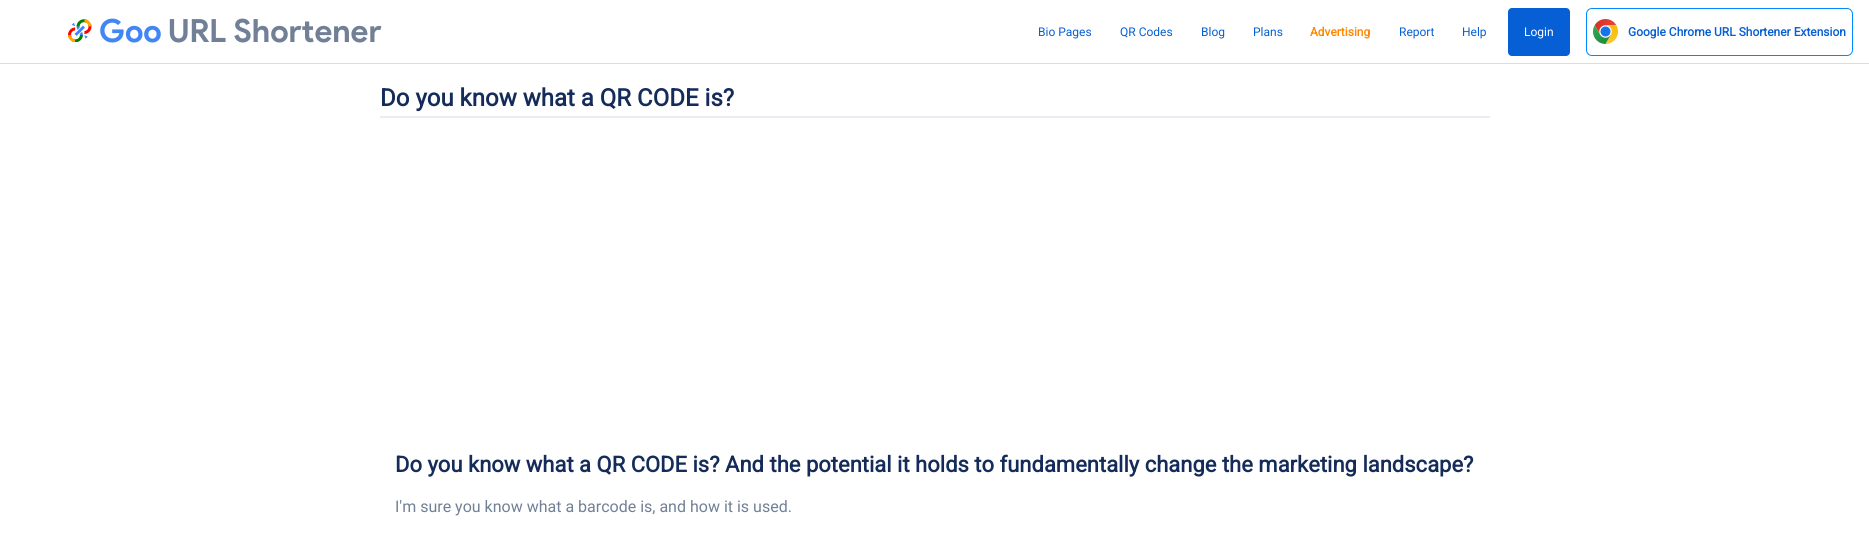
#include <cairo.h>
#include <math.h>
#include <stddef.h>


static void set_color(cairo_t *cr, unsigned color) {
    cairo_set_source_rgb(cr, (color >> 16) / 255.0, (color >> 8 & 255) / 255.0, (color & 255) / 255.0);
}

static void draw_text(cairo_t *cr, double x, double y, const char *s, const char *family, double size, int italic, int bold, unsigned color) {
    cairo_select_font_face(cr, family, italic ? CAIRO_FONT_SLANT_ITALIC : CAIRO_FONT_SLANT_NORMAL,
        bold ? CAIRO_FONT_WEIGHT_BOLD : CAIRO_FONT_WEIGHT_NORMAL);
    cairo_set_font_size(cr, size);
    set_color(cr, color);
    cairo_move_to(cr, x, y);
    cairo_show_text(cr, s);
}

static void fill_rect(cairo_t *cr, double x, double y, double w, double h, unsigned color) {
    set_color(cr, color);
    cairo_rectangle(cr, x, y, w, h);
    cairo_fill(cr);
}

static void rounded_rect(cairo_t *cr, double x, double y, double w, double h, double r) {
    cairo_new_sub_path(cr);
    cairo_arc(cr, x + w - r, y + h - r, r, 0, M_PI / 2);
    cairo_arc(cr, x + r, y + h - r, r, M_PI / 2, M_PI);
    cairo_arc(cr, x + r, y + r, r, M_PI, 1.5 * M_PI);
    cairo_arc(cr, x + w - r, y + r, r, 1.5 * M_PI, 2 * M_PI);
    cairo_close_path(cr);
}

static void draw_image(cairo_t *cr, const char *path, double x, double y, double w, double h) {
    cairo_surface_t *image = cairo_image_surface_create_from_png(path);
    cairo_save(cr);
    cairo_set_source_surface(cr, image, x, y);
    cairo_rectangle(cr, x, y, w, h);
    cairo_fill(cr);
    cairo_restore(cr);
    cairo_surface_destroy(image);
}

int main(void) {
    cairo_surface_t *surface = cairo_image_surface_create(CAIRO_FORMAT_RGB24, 1869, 542);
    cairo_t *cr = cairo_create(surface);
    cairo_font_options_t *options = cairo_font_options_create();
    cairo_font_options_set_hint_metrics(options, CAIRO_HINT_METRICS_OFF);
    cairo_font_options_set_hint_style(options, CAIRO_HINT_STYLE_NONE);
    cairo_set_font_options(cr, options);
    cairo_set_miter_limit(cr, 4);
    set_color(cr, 0xFFFFFF);
    cairo_paint(cr);
    fill_rect(cr, 0, 63, 1869, 1, 0xDCDCDD);
    draw_image(cr, "assets/img1.png", 68, 19, 24, 23);
    draw_text(cr, 99, 42, "Goo", "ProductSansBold", 32, 0, 1, 0x4285F4);
    draw_text(cr, 168, 42, "URL Shortener", "ProductSansBold", 32, 0, 1, 0x718096);
    draw_text(cr, 1038, 36, "Bio Pages", "Roboto", 12, 0, 0, 0x065FD4);
    draw_text(cr, 1120, 36, "QR Codes", "Roboto", 12, 0, 0, 0x065FD4);
    draw_text(cr, 1201, 36, "Blog", "Roboto", 12, 0, 0, 0x065FD4);
    draw_text(cr, 1253, 36, "Plans", "Roboto", 12, 0, 0, 0x065FD4);
    draw_text(cr, 1310, 36, "Advertising", "Roboto", 12, 0, 1, 0xFF8800);
    draw_text(cr, 1399, 36, "Report", "Roboto", 12, 0, 0, 0x065FD4);
    draw_text(cr, 1462, 36, "Help", "Roboto", 12, 0, 0, 0x065FD4);
    rounded_rect(cr, 1508, 8, 62, 48, 4);
    cairo_fill(cr);
    draw_text(cr, 1524, 36, "Login", "Roboto", 12, 0, 0, 0xFFFFFF);
    rounded_rect(cr, 1586.5, 8.5, 266, 47, 5.5);
    set_color(cr, 0x008AFF);
    cairo_set_line_width(cr, 1);
    cairo_stroke(cr);
    draw_image(cr, "assets/img2.png", 1593, 19, 25, 25);
    draw_text(cr, 1628, 36, "Google Chrome URL Shortener Extension", "Roboto", 12, 0, 1, 0x065FD4);
    draw_text(cr, 380, 106, "Do you know what a QR CODE is?", "Roboto", 24, 0, 1, 0x152C5B);
    set_color(cr, 0xEAECF3);
    rounded_rect(cr, 380, 116, 1110, 2, 1);
    cairo_fill(cr);
    draw_text(cr, 395, 472, "Do you know what a QR CODE is? And the potential it holds to fundamentally change the marketing landscape?", "Roboto", 22, 0, 1, 0x152C5B);
    draw_text(cr, 395, 512, "I'm sure you know what a barcode is, and how it is used.", "Roboto", 16, 0, 0, 0x718096);
    cairo_surface_write_to_png(surface, "output.png");
    cairo_font_options_destroy(options);
    cairo_destroy(cr);
    cairo_surface_destroy(surface);
    return 0;
}
